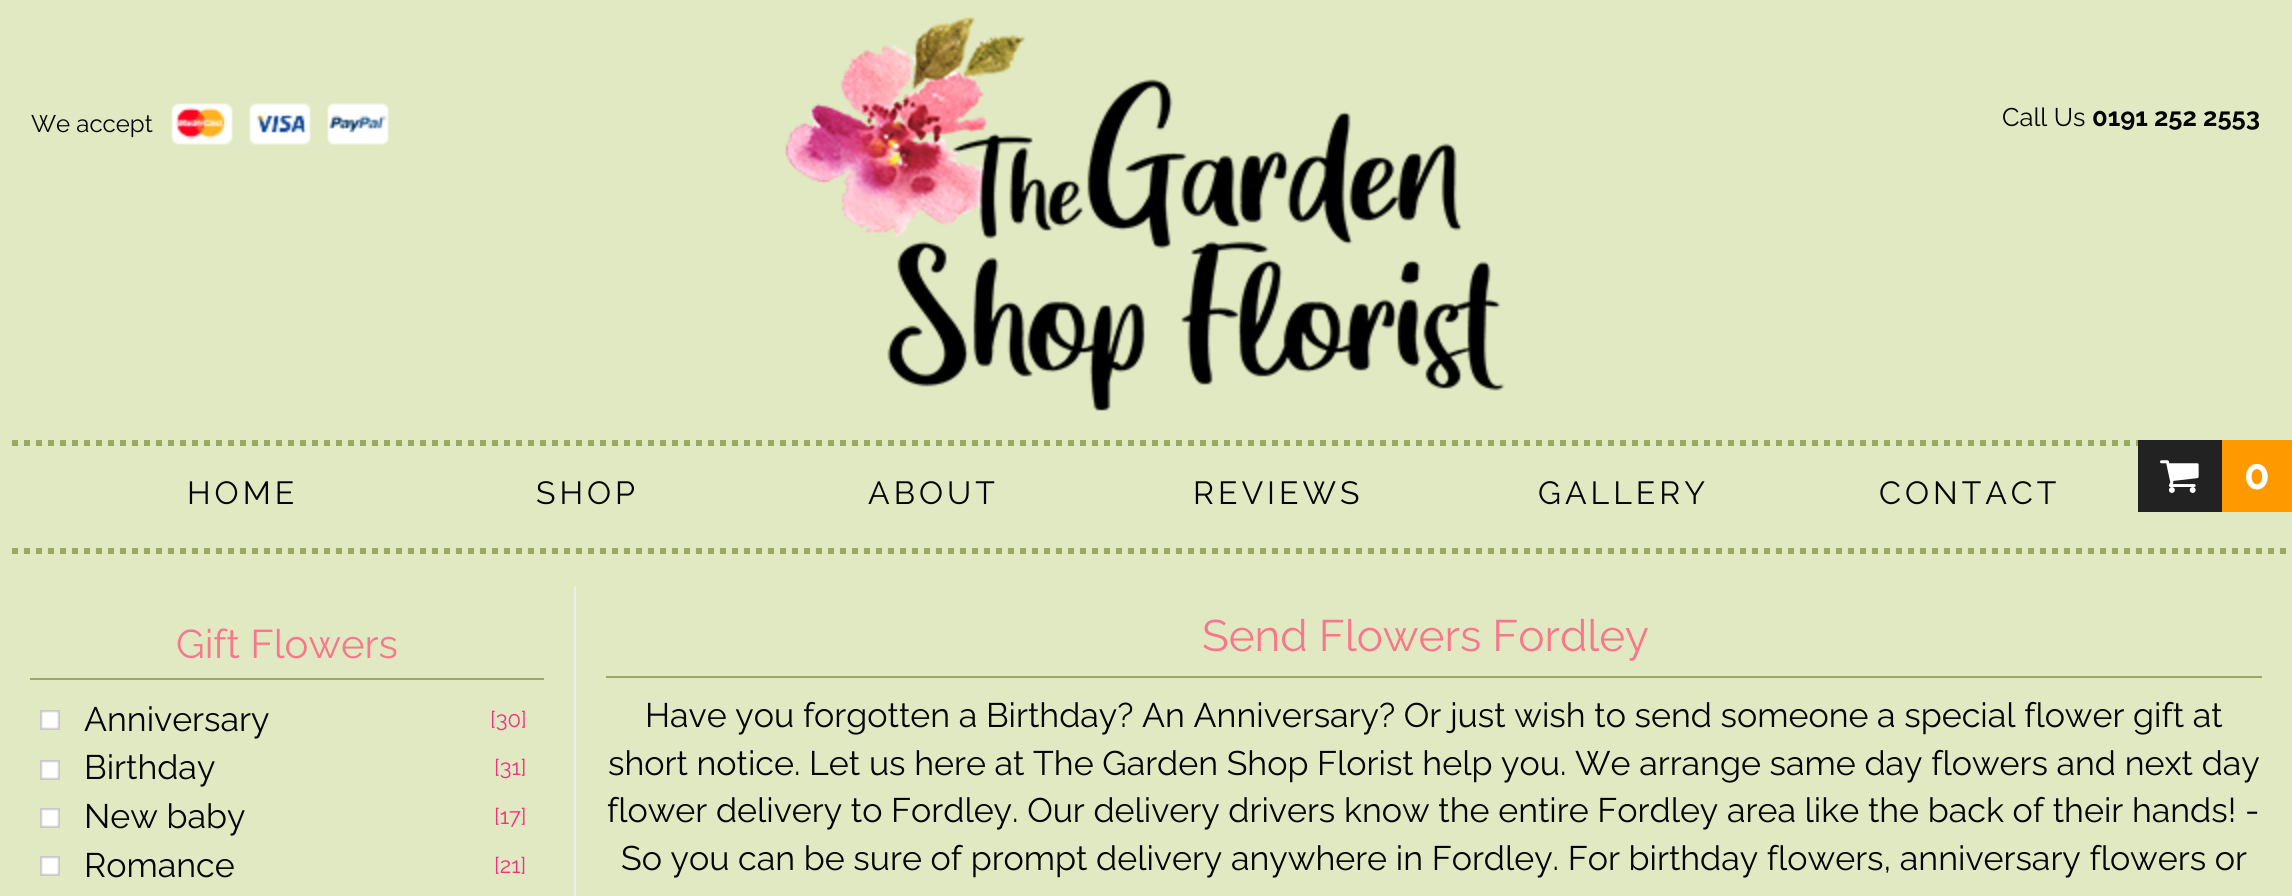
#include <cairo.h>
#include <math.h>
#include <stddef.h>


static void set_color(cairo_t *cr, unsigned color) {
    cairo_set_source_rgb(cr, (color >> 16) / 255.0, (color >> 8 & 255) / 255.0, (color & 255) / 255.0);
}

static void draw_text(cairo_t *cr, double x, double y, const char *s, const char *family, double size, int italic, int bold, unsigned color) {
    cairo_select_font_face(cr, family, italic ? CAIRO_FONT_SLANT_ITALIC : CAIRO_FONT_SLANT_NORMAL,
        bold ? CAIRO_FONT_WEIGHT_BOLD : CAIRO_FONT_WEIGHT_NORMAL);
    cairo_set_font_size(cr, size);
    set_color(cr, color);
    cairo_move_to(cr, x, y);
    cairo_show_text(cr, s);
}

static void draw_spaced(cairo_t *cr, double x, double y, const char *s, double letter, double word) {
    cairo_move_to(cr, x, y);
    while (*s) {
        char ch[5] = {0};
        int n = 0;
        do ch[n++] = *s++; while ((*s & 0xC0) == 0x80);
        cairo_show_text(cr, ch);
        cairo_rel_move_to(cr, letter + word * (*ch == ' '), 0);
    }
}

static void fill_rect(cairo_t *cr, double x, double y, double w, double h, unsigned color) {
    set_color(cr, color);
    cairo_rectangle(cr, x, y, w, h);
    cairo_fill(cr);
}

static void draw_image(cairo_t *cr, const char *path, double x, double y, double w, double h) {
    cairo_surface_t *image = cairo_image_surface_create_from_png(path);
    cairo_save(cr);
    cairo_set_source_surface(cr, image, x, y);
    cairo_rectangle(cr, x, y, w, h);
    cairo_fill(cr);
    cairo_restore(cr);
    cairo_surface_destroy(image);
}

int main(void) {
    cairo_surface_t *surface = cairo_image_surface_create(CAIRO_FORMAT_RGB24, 2292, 896);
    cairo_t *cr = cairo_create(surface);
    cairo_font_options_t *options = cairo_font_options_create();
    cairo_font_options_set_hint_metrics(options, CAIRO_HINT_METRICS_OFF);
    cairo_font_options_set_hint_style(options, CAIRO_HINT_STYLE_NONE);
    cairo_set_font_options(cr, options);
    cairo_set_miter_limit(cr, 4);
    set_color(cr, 0xE0E9C2);
    cairo_paint(cr);
    draw_image(cr, "assets/img1.png", 171, 103, 218, 42);
    draw_text(cr, 31, 132, "We accept", "Raleway", 24, 0, 0, 0x040404);
    draw_image(cr, "assets/img2.png", 785, 17, 720, 394);
    draw_text(cr, 2002, 126, "Call Us", "Raleway", 25.5, 0, 0, 0x040404);
    draw_text(cr, 2092, 126, "0191 252 2553", "Raleway", 25.5, 0, 1, 0x040404);
    cairo_new_path(cr);
    cairo_move_to(cr, 0, 443);
    cairo_line_to(cr, 2292, 443);
    set_color(cr, 0x9AAA61);
    cairo_set_line_width(cr, 6);
    cairo_set_dash(cr, (double[]){6, 6}, 2, 0);
    cairo_stroke(cr);
    fill_rect(cr, 2138, 440, 84, 72, 0x222222);
    draw_image(cr, "assets/img3.png", 2160, 460, 39, 33);
    fill_rect(cr, 2222, 440, 70, 72, 0xFF9900);
    draw_text(cr, 2244, 489, "0", "Raleway", 42, 0, 1, 0xFFFFFF);
    cairo_new_path(cr);
    cairo_move_to(cr, 0, 551);
    cairo_line_to(cr, 2292, 551);
    set_color(cr, 0x9AAA61);
    cairo_stroke(cr);
    cairo_new_path(cr);
    cairo_move_to(cr, 3, 440);
    cairo_line_to(cr, 3, 554);
    set_color(cr, 0xE0E9C2);
    cairo_stroke(cr);
    cairo_select_font_face(cr, "Raleway", CAIRO_FONT_SLANT_NORMAL, CAIRO_FONT_WEIGHT_NORMAL);
    cairo_set_font_size(cr, 32);
    set_color(cr, 0x040404);
    draw_spaced(cr, 187, 504, "HOME", 4, 0);
    draw_spaced(cr, 536, 504, "SHOP", 4, 0);
    draw_spaced(cr, 868, 504, "ABOUT", 4, 0);
    draw_spaced(cr, 1193, 504, "REVIEWS", 4, 0);
    draw_spaced(cr, 1538, 504, "GALLERY", 4, 0);
    draw_spaced(cr, 1879, 504, "CONTACT", 4, 0);
    fill_rect(cr, 30, 678, 514, 2, 0x9AAA61);
    draw_text(cr, 176, 658, "Gift Flowers", "Raleway", 40, 0, 0, 0xF8778A);
    draw_image(cr, "assets/img4.png", 40, 710, 20, 20);
    draw_text(cr, 84, 731, "Anniversary", "Raleway", 34, 0, 0, 0x040404);
    draw_text(cr, 490, 727, "[30]", "Raleway", 22, 0, 0, 0xF33180);
    draw_image(cr, "assets/img4.png", 40, 760, 20, 20);
    draw_text(cr, 84, 779, "Birthday", "Raleway", 34, 0, 0, 0x040404);
    draw_text(cr, 494, 775, "[31]", "Raleway", 22, 0, 0, 0xF33180);
    draw_image(cr, "assets/img4.png", 40, 808, 20, 20);
    draw_text(cr, 84, 828, "New baby", "Raleway", 34, 0, 0, 0x040404);
    draw_text(cr, 494, 824, "[17]", "Raleway", 22, 0, 0, 0xF33180);
    draw_image(cr, "assets/img4.png", 40, 856, 20, 20);
    draw_text(cr, 84, 877, "Romance", "Raleway", 34, 0, 0, 0x040404);
    draw_text(cr, 494, 873, "[21]", "Raleway", 22, 0, 0, 0xF33180);
    fill_rect(cr, 574, 586, 2, 310, 0xEDEDED);
    fill_rect(cr, 606, 676, 1656, 2, 0x9AAA61);
    draw_text(cr, 1202, 651, "Send Flowers Fordley", "Raleway", 44, 0, 0, 0xF8778A);
    draw_text(cr, 645, 727, "Have you forgotten a Birthday? An Anniversary? Or just wish to send someone a special flower gift at", "Raleway", 34, 0, 0, 0x040404);
    draw_text(cr, 608, 775, "short notice. Let us here at The Garden Shop Florist help you. We arrange same day flowers and next day", "Raleway", 34, 0, 0, 0x040404);
    draw_text(cr, 607, 822, "flower delivery to Fordley. Our delivery drivers know the entire Fordley area like the back of their hands! -", "Raleway", 34, 0, 0, 0x040404);
    draw_text(cr, 621, 870, "So you can be sure of prompt delivery anywhere in Fordley. For birthday flowers, anniversary flowers or", "Raleway", 34, 0, 0, 0x040404);
    cairo_surface_write_to_png(surface, "output.png");
    cairo_font_options_destroy(options);
    cairo_destroy(cr);
    cairo_surface_destroy(surface);
    return 0;
}
